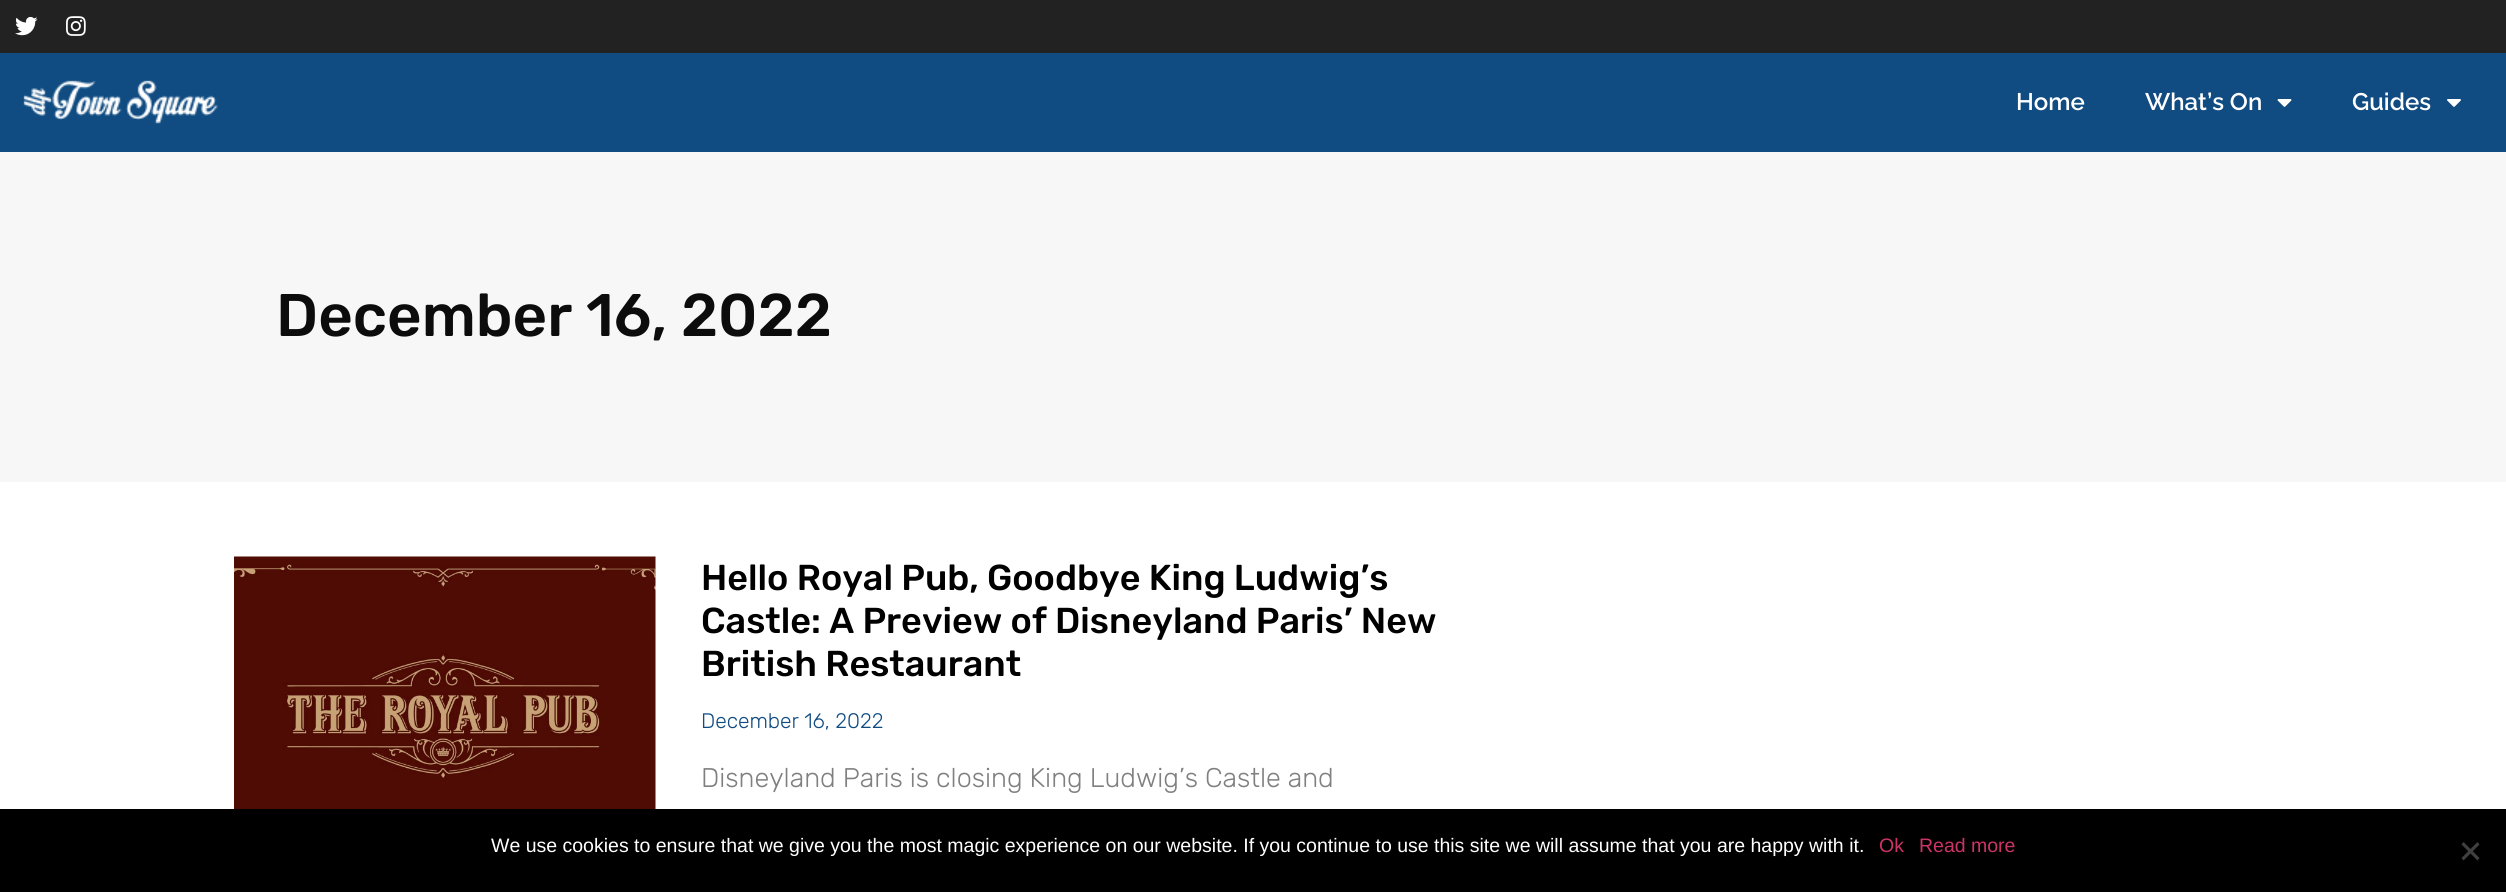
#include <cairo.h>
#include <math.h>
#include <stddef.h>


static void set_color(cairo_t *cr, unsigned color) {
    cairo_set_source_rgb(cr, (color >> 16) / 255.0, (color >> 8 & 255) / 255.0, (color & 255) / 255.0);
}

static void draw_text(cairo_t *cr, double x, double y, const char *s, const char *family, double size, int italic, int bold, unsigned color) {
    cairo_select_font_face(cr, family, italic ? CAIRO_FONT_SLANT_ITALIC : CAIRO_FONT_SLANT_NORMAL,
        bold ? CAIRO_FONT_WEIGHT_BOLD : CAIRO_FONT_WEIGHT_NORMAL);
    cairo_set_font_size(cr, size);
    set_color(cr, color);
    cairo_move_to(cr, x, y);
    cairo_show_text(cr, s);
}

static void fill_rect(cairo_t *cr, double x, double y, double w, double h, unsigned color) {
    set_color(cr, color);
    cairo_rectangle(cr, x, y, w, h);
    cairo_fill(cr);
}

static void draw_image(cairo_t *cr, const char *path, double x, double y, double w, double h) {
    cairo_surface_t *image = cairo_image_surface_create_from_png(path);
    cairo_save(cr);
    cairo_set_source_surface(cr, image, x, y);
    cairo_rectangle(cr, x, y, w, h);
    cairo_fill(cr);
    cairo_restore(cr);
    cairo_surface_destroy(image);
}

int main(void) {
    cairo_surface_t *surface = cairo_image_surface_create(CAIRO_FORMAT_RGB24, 2506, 892);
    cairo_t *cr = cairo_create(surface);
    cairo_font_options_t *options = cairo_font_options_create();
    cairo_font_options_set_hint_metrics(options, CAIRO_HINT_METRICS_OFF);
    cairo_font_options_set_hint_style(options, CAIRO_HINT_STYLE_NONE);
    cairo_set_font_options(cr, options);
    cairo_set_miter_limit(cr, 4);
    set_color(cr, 0xFFFFFF);
    cairo_paint(cr);
    fill_rect(cr, 0, 0, 2506, 53, 0x222222);
    draw_image(cr, "assets/img1.png", 15, 16, 23, 20);
    draw_image(cr, "assets/img2.png", 66, 16, 20, 20);
    fill_rect(cr, 0, 53, 2506, 99, 0x104B81);
    draw_image(cr, "assets/img3.png", 23, 80, 195, 44);
    draw_text(cr, 2016, 110, "Home", "Raleway SemiBold", 24, 0, 0, 0xFFFFFF);
    draw_text(cr, 2145, 110, "What’s On", "Raleway SemiBold", 24, 0, 0, 0xFFFFFF);
    draw_image(cr, "assets/img4.png", 2277, 99, 15, 8);
    draw_text(cr, 2352, 110, "Guides", "Raleway SemiBold", 24, 0, 0, 0xFFFFFF);
    draw_image(cr, "assets/img5.png", 2447, 99, 14, 8);
    fill_rect(cr, 0, 152, 2506, 330, 0xF7F7F7);
    draw_text(cr, 276, 336, "December 16, 2022", "Rubik Medium", 60, 0, 0, 0x0C0C0C);
    draw_image(cr, "assets/img6.png", 234, 556, 422, 253);
    draw_text(cr, 701, 590, "Hello Royal Pub, Goodbye King Ludwig’s", "Rubik Medium", 36, 0, 0, 0x000000);
    draw_text(cr, 701, 633, "Castle: A Preview of Disneyland Paris’ New", "Rubik Medium", 36, 0, 0, 0x000000);
    draw_text(cr, 701, 676, "British Restaurant", "Rubik Medium", 36, 0, 0, 0x000000);
    draw_text(cr, 701, 728, "December 16, 2022", "Rubik Light", 21, 0, 0, 0x104B81);
    draw_text(cr, 701, 787, "Disneyland Paris is closing King Ludwig’s Castle and", "Rubik Light", 27, 0, 0, 0x808080);
    fill_rect(cr, 0, 809, 2506, 83, 0x000000);
    draw_text(cr, 491, 852, "We use cookies to ensure that we give you the most magic experience on our website. If you continue to use this site we will assume that you are happy with it.", "Liberation Sans", 19.5, 0, 0, 0xFFFFFF);
    draw_text(cr, 1879, 852, "Ok", "Liberation Sans", 19.5, 0, 0, 0xCC3366);
    draw_text(cr, 1919, 852, "Read more", "Liberation Sans", 19.5, 0, 0, 0xCC3366);
    set_color(cr, 0x404040);
    cairo_new_path(cr);
    cairo_move_to(cr, 2477.5, 842);
    cairo_line_to(cr, 2479.5, 844.5);
    cairo_line_to(cr, 2463.5, 860.5);
    cairo_line_to(cr, 2461.5, 858);
    cairo_close_path(cr);
    cairo_fill(cr);
    cairo_new_path(cr);
    cairo_move_to(cr, 2461.5, 844.5);
    cairo_line_to(cr, 2463.5, 842);
    cairo_line_to(cr, 2479.5, 858);
    cairo_line_to(cr, 2477.5, 860.5);
    cairo_close_path(cr);
    cairo_fill(cr);
    cairo_surface_write_to_png(surface, "output.png");
    cairo_font_options_destroy(options);
    cairo_destroy(cr);
    cairo_surface_destroy(surface);
    return 0;
}
